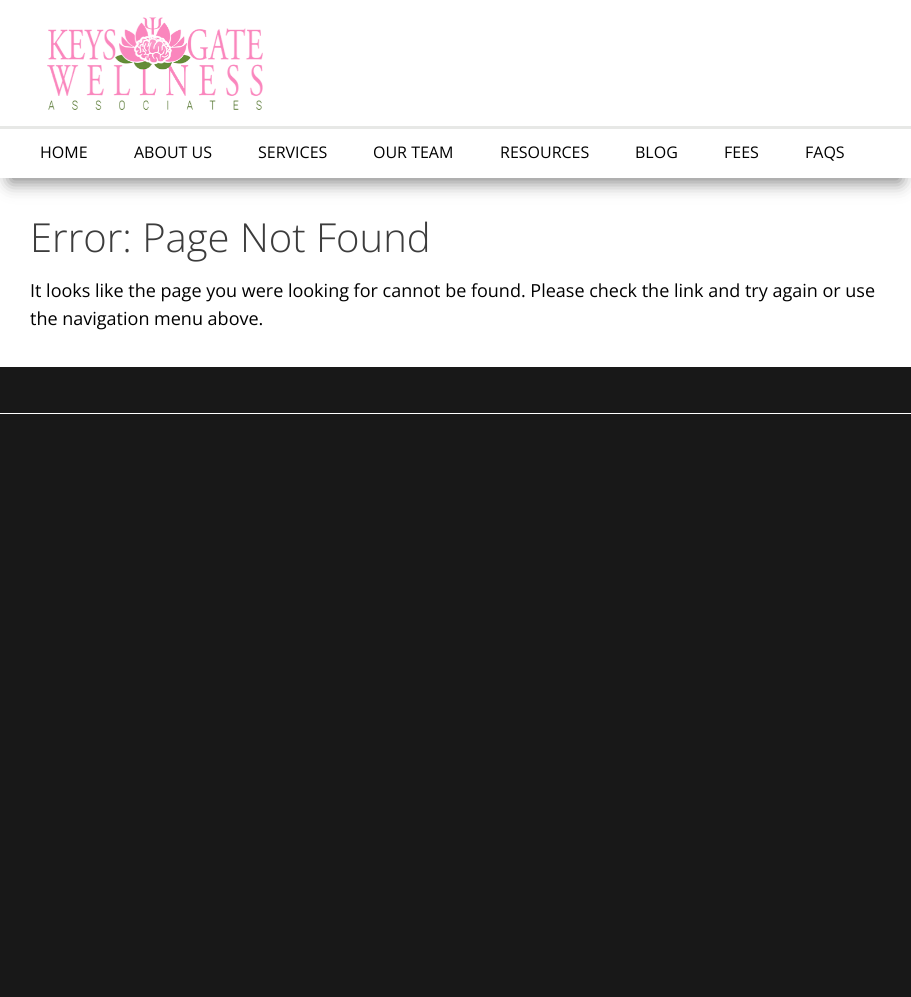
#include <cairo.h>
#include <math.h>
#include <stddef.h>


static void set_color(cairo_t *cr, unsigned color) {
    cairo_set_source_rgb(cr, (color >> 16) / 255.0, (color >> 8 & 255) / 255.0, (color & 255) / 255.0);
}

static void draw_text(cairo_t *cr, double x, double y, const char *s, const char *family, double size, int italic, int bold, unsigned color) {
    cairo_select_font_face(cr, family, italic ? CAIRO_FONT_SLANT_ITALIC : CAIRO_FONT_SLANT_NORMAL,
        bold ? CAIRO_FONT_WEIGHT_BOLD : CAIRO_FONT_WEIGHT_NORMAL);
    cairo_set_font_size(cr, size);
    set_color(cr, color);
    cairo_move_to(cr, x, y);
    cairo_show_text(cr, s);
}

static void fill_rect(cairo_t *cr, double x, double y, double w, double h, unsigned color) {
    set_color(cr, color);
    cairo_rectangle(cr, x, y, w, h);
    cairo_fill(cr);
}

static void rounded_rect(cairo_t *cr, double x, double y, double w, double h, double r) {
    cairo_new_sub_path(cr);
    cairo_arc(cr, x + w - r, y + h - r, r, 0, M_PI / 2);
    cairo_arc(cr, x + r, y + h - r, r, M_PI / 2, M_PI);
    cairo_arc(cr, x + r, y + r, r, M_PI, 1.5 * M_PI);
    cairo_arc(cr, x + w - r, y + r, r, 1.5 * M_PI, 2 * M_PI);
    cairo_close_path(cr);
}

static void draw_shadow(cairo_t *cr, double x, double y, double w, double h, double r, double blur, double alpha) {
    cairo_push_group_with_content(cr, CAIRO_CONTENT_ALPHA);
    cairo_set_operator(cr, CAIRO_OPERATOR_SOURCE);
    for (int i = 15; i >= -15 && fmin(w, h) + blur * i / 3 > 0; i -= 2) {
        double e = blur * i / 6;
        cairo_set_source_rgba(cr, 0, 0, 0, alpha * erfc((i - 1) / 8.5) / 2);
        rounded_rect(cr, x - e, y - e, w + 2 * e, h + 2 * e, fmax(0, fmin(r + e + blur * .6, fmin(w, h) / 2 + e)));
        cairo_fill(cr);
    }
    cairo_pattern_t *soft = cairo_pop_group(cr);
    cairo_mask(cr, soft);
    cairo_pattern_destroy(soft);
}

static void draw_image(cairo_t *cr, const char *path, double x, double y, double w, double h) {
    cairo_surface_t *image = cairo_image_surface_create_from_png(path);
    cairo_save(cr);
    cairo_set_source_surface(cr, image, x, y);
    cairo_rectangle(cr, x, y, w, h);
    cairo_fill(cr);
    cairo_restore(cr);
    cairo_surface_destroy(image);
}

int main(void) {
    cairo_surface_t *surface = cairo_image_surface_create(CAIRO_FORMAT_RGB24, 911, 997);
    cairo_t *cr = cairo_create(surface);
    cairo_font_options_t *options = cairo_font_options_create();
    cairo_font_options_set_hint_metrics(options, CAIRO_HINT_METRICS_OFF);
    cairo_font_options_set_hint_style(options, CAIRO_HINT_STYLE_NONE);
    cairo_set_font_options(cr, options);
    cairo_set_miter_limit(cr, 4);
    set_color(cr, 0x181818);
    cairo_paint(cr);
    fill_rect(cr, 0, 0, 911, 126, 0xFFFFFF);
    draw_image(cr, "assets/img1.png", 47, 17, 216, 93);
    fill_rect(cr, 0, 178, 911, 189, 0xFFFFFF);
    set_color(cr, 0x000000);
    draw_shadow(cr, 10, 150, 891, 32, 0, 9, 0.5);
    fill_rect(cr, 0, 129, 911, 49, 0xFFFFFF);
    fill_rect(cr, 0, 126, 911, 3, 0xE7E8E6);
    draw_text(cr, 40, 158, "HOME", "Open Sans", 16, 0, 0, 0x000000);
    draw_text(cr, 134, 158, "ABOUT US", "Open Sans", 16, 0, 0, 0x000000);
    draw_text(cr, 258, 158, "SERVICES", "Open Sans", 16, 0, 0, 0x000000);
    draw_text(cr, 373, 158, "OUR TEAM", "Open Sans", 16, 0, 0, 0x000000);
    draw_text(cr, 500, 158, "RESOURCES", "Open Sans", 16, 0, 0, 0x000000);
    draw_text(cr, 635, 158, "BLOG", "Open Sans", 16, 0, 0, 0x000000);
    draw_text(cr, 724, 158, "FEES", "Open Sans", 16, 0, 0, 0x000000);
    draw_text(cr, 805, 158, "FAQS", "Open Sans", 16, 0, 0, 0x000000);
    draw_text(cr, 30, 252, "Error: Page Not Found", "Open Sans Light", 40, 0, 0, 0x3C3C3C);
    draw_text(cr, 30, 297, "It looks like the page you were looking for cannot be found. Please check the link and try again or use", "Open Sans", 18, 0, 0, 0x000000);
    draw_text(cr, 30, 325, "the navigation menu above.", "Open Sans", 18, 0, 0, 0x000000);
    fill_rect(cr, 0, 413, 911, 1, 0xFFFFFF);
    cairo_surface_write_to_png(surface, "output.png");
    cairo_font_options_destroy(options);
    cairo_destroy(cr);
    cairo_surface_destroy(surface);
    return 0;
}
